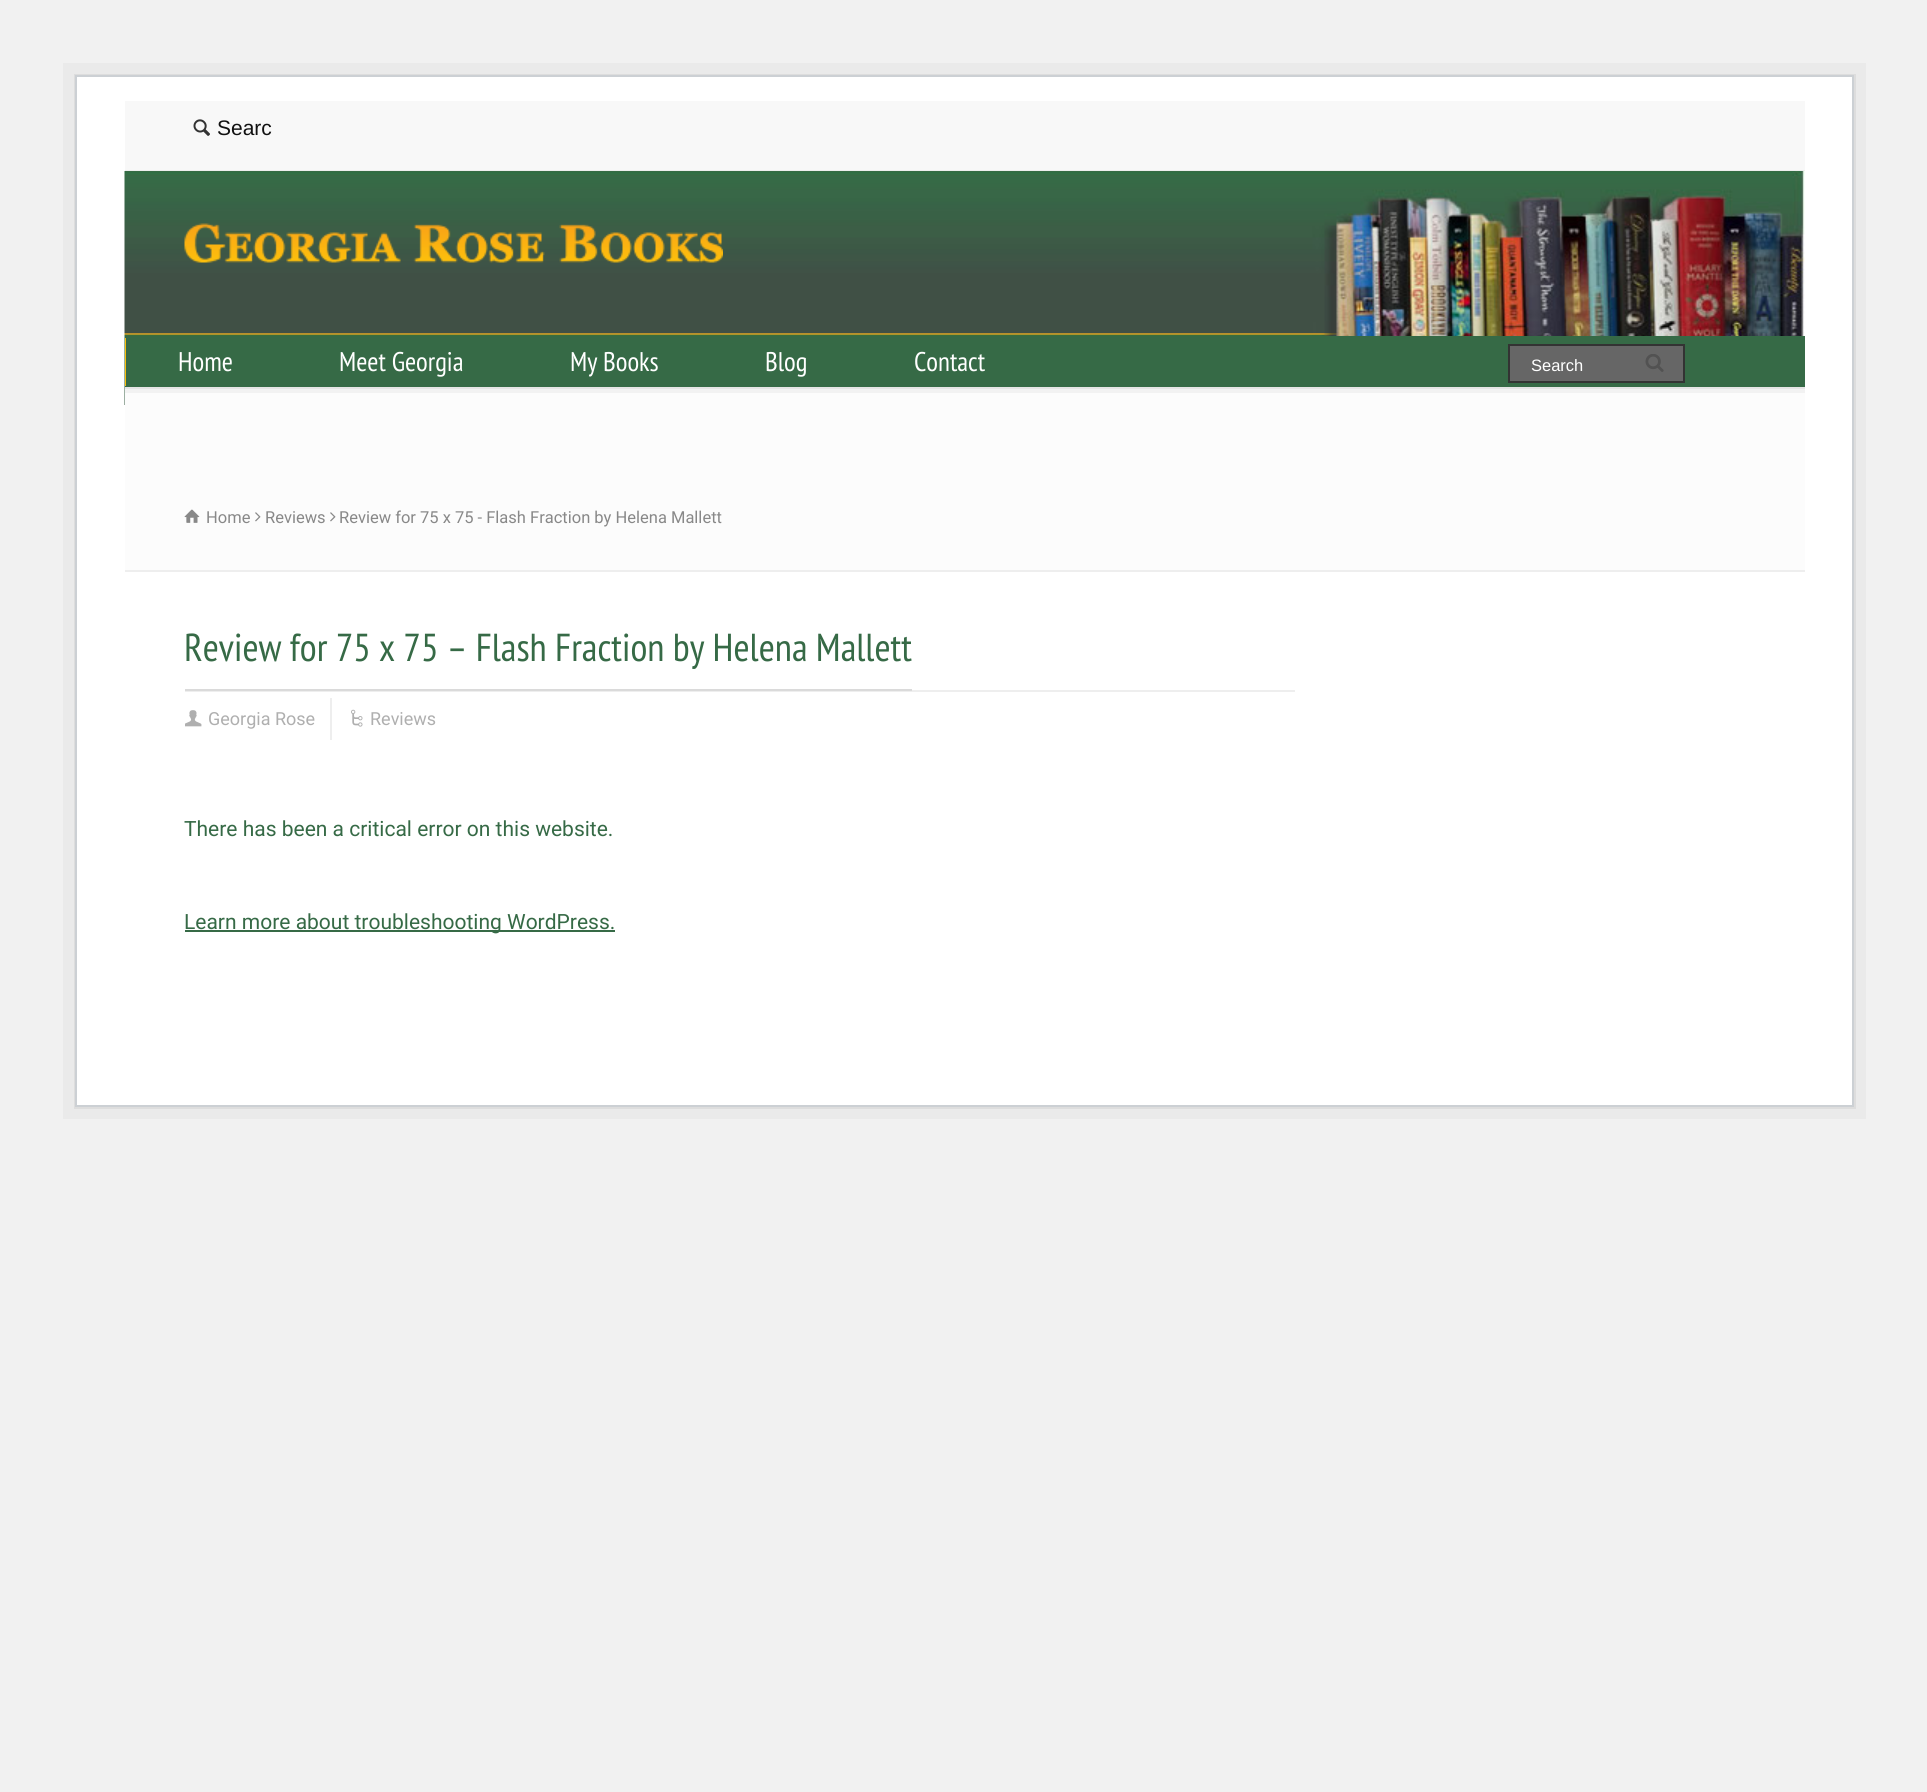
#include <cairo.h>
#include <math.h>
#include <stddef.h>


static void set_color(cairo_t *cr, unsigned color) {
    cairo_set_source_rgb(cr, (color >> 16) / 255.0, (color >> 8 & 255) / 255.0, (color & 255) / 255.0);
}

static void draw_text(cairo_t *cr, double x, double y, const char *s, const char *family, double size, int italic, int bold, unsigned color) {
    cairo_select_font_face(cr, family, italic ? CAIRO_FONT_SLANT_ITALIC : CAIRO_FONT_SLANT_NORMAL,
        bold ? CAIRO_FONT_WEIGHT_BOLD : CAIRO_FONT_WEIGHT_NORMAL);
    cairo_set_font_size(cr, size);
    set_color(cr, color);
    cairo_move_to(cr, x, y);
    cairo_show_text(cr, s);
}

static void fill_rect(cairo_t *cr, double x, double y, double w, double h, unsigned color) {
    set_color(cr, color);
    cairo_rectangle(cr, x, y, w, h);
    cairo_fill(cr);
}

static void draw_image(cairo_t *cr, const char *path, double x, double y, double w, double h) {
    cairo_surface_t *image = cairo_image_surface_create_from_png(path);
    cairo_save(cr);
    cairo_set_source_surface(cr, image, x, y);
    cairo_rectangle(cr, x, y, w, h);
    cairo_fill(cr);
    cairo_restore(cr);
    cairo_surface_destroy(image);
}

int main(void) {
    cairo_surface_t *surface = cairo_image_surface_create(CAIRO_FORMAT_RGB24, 1927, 1792);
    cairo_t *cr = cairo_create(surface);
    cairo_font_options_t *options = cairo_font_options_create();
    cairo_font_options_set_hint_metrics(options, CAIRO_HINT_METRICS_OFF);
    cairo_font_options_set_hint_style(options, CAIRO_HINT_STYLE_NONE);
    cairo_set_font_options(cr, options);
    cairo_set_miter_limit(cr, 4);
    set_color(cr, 0xF1F1F1);
    cairo_paint(cr);
    cairo_rectangle(cr, 75, 75, 1780, 1033);
    set_color(cr, 0xE3E3E3);
    cairo_stroke(cr);
    cairo_rectangle(cr, 69, 69, 1791, 1044);
    cairo_set_source_rgba(cr, 0, 0, 0, 0.03);
    cairo_set_line_width(cr, 12);
    cairo_stroke(cr);
    set_color(cr, 0xFFFFFF);
    cairo_rectangle(cr, 76, 76, 1777, 1030);
    cairo_fill_preserve(cr);
    set_color(cr, 0xCCD0D4);
    cairo_set_line_width(cr, 2);
    cairo_stroke(cr);
    fill_rect(cr, 125, 101, 1680, 69, 0xF8F8F8);
    fill_rect(cr, 125, 170, 1680, 1, 0xEEEEEE);
    draw_image(cr, "assets/img1.png", 193, 119, 17, 17);
    draw_text(cr, 217, 135, "Searc", "Liberation Sans", 21, 0, 0, 0x111111);
    draw_image(cr, "assets/img2.png", 124, 171, 1681, 234);
    draw_image(cr, "assets/img3.png", 184, 223, 539, 40);
    fill_rect(cr, 125, 389, 1680, 181, 0xFCFCFC);
    fill_rect(cr, 125, 387, 1680, 2, 0xEEEEEE);
    cairo_set_source_rgba(cr, 0, 0, 0, 0.04);
    cairo_new_path(cr);
    cairo_move_to(cr, 125, 387);
    cairo_line_to(cr, 125, 393);
    cairo_line_to(cr, 1805, 393);
    cairo_line_to(cr, 1805, 342);
    cairo_line_to(cr, 1804, 342);
    cairo_line_to(cr, 1804, 387);
    cairo_close_path(cr);
    cairo_fill(cr);
    fill_rect(cr, 125, 336, 1680, 51, 0x366A46);
    fill_rect(cr, 125, 338, 1, 48, 0xFCBE0B);
    draw_text(cr, 178, 371, "Home", "PT Sans Narrow", 27, 0, 0, 0xFFFFFF);
    draw_text(cr, 339, 371, "Meet Georgia", "PT Sans Narrow", 27, 0, 0, 0xFFFFFF);
    draw_text(cr, 570, 371, "My Books", "PT Sans Narrow", 27, 0, 0, 0xFFFFFF);
    draw_text(cr, 765, 371, "Blog", "PT Sans Narrow", 27, 0, 0, 0xFFFFFF);
    draw_text(cr, 914, 371, "Contact", "PT Sans Narrow", 27, 0, 0, 0xFFFFFF);
    set_color(cr, 0x666666);
    cairo_rectangle(cr, 1509, 345, 175, 37);
    cairo_fill_preserve(cr);
    set_color(cr, 0x333333);
    cairo_stroke(cr);
    draw_text(cr, 1531, 371, "Search", "Liberation Sans", 16.5, 0, 0, 0xFFFFFF);
    draw_image(cr, "assets/img4.png", 1645, 354, 19, 18);
    fill_rect(cr, 125, 570, 1680, 2, 0xEEEEEE);
    draw_image(cr, "assets/img5.png", 184, 509, 16, 14);
    draw_text(cr, 206, 523, "Home", "Roboto", 16.5, 0, 0, 0x888888);
    draw_image(cr, "assets/img6.png", 255, 512, 6, 10);
    draw_text(cr, 265, 523, "Reviews", "Roboto", 16.5, 0, 0, 0x888888);
    draw_image(cr, "assets/img6.png", 330, 512, 6, 10);
    draw_text(cr, 339, 523, "Review for 75 x 75 - Flash Fraction by Helena Mallett", "Roboto", 16.5, 0, 0, 0x888888);
    fill_rect(cr, 185, 690, 1110, 2, 0xEEEEEE);
    fill_rect(cr, 185, 689, 727, 2, 0xDADADA);
    draw_text(cr, 184, 661, "Review for 75 x 75 – Flash Fraction by Helena Mallett", "PT Sans Narrow", 39, 0, 0, 0x366A46);
    fill_rect(cr, 330, 698, 2, 42, 0xEEEEEE);
    draw_image(cr, "assets/img7.png", 185, 710, 17, 17);
    draw_text(cr, 208, 725, "Georgia Rose", "Roboto", 18, 0, 0, 0xAFAFAF);
    draw_image(cr, "assets/img8.png", 351, 709, 12, 18);
    draw_text(cr, 370, 725, "Reviews", "Roboto", 18, 0, 0, 0xAFAFAF);
    draw_text(cr, 184, 836, "There has been a critical error on this website.", "Roboto", 21, 0, 0, 0x366A46);
    fill_rect(cr, 185, 930, 430, 2, 0x366A46);
    draw_text(cr, 184, 929, "Learn more about troubleshooting WordPress.", "Roboto", 21, 0, 0, 0x366A46);
    cairo_surface_write_to_png(surface, "output.png");
    cairo_font_options_destroy(options);
    cairo_destroy(cr);
    cairo_surface_destroy(surface);
    return 0;
}
